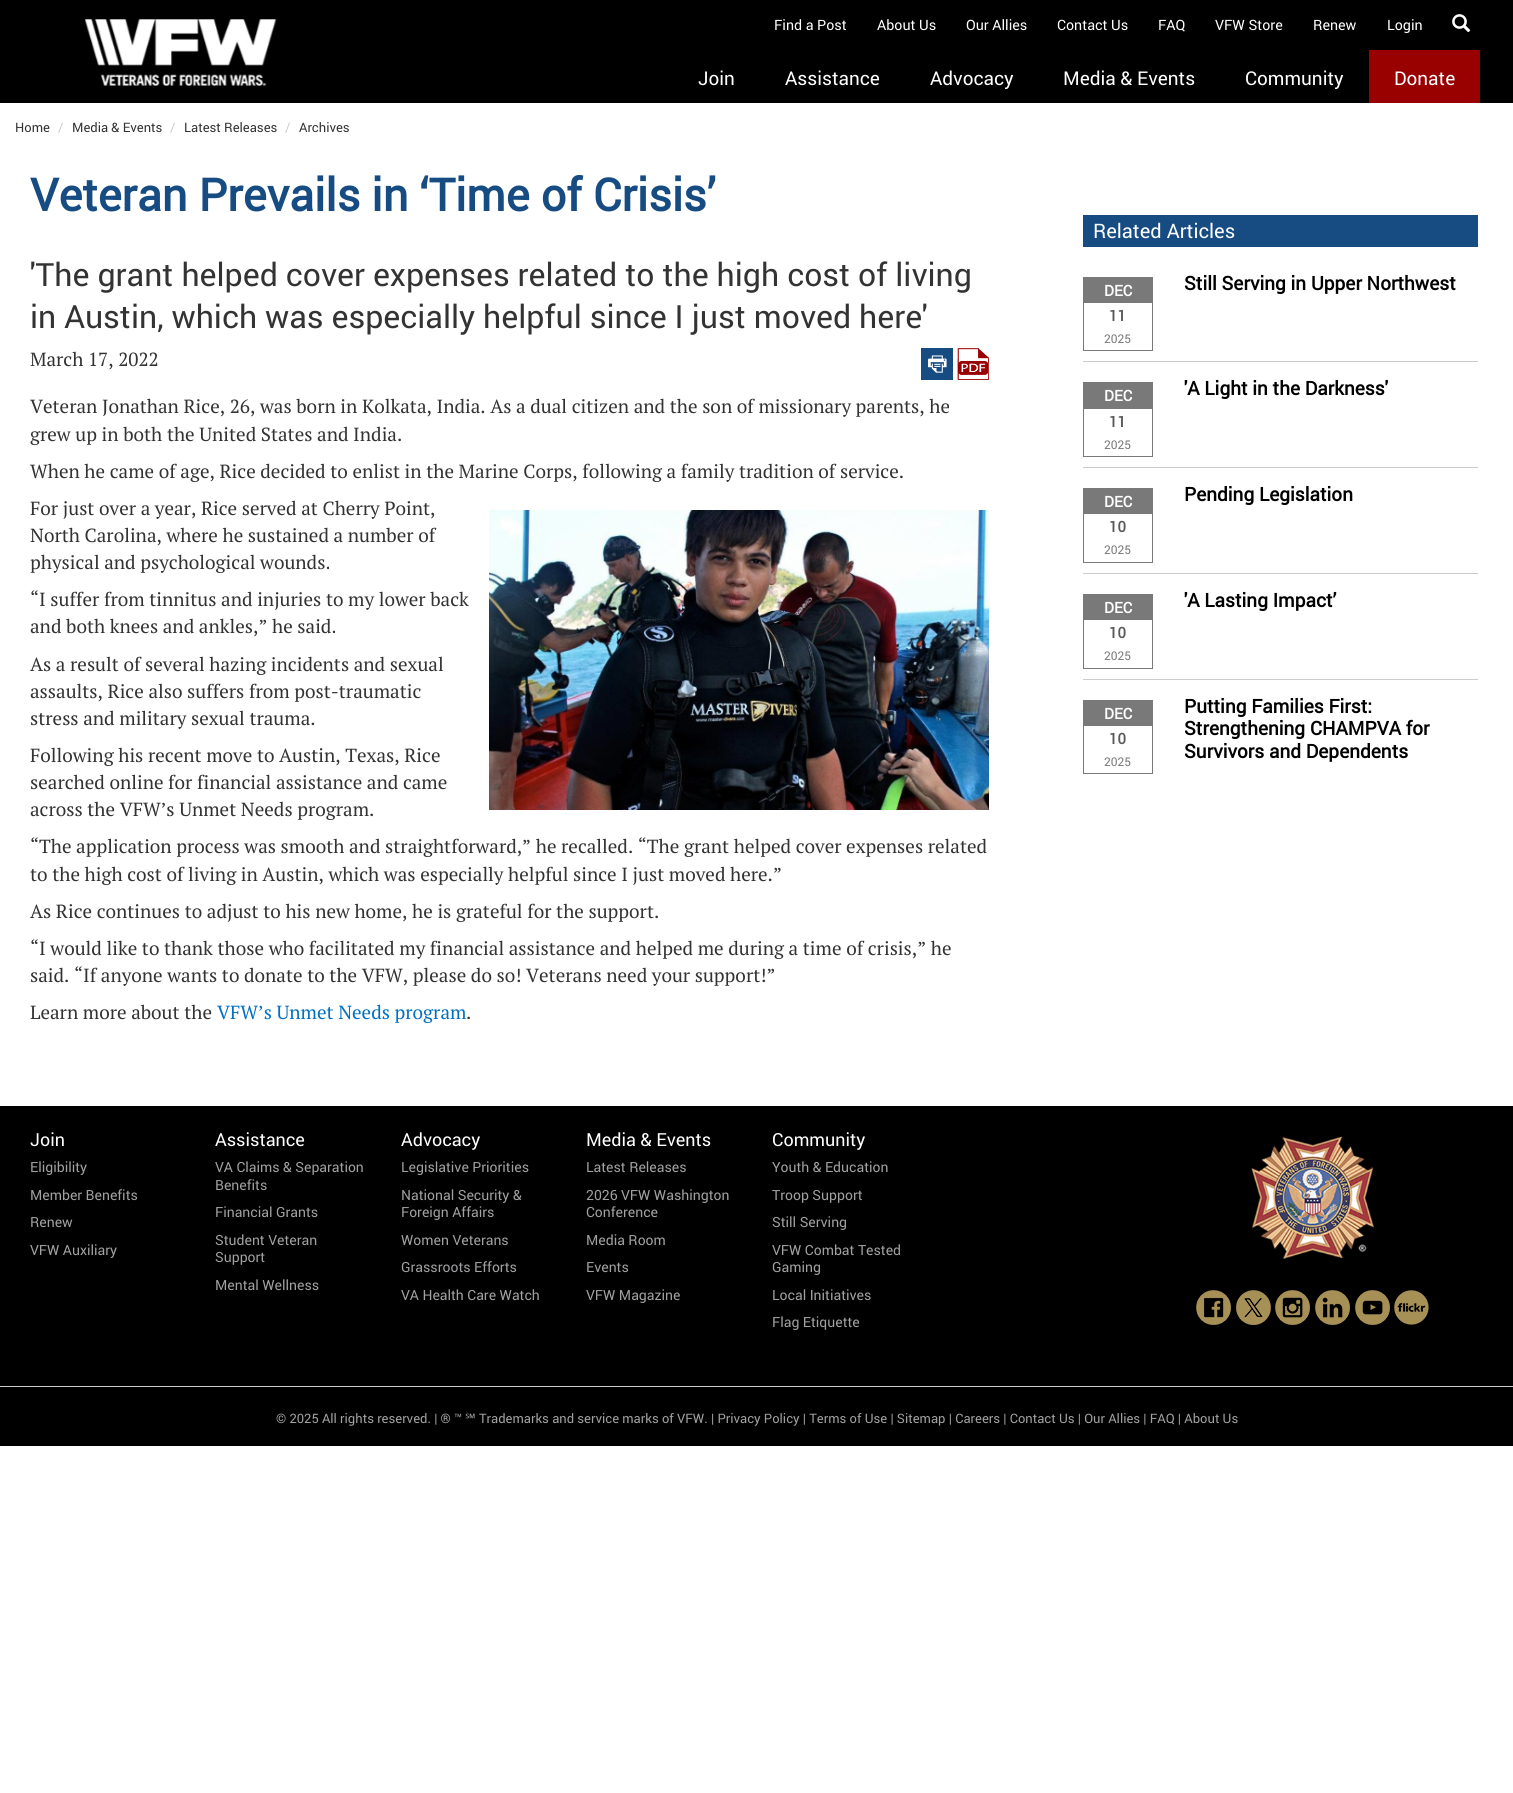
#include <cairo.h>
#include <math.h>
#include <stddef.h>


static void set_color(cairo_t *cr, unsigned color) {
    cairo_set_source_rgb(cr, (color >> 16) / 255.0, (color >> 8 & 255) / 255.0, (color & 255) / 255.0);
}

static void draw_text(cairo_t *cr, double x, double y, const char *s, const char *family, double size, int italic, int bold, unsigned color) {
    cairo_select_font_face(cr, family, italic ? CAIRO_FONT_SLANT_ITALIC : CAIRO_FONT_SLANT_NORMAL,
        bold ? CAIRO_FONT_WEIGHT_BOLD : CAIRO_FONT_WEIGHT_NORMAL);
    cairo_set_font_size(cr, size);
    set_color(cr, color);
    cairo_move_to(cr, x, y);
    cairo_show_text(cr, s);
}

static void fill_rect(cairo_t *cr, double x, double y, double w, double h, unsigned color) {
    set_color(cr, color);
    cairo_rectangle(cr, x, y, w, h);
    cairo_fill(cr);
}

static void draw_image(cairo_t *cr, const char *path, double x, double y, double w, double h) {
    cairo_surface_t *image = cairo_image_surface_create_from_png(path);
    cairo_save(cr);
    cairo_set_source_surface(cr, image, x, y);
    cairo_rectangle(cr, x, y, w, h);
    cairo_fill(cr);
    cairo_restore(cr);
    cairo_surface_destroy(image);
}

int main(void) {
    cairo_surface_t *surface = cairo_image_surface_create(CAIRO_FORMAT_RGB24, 1513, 1793);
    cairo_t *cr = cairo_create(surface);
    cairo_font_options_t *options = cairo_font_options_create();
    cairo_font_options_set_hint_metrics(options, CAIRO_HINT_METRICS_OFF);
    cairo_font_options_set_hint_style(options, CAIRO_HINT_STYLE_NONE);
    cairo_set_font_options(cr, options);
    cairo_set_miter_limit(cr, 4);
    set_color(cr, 0xFFFFFF);
    cairo_paint(cr);
    fill_rect(cr, 0, 0, 1513, 103, 0x000000);
    draw_image(cr, "assets/img1.png", 85, 19, 192, 67);
    draw_text(cr, 774, 30, "Find a Post", "roboto", 14.25, 0, 0, 0xFFFFFF);
    draw_text(cr, 877, 30, "About Us", "roboto", 14.25, 0, 0, 0xFFFFFF);
    draw_text(cr, 966, 30, "Our Allies", "roboto", 14.25, 0, 0, 0xFFFFFF);
    draw_text(cr, 1057, 30, "Contact Us", "roboto", 14.25, 0, 0, 0xFFFFFF);
    draw_text(cr, 1158, 30, "FAQ", "roboto", 14.25, 0, 0, 0xFFFFFF);
    draw_text(cr, 1215, 30, "VFW Store", "roboto", 14.25, 0, 0, 0xFFFFFF);
    draw_text(cr, 1313, 30, "Renew", "roboto", 14.25, 0, 0, 0xFFFFFF);
    draw_text(cr, 1387, 30, "Login", "roboto", 14.25, 0, 0, 0xFFFFFF);
    draw_image(cr, "assets/img2.png", 1452, 14, 19, 19);
    draw_text(cr, 698, 85, "Join", "roboto", 19, 0, 0, 0xFFFFFF);
    draw_text(cr, 785, 85, "Assistance", "roboto", 19, 0, 0, 0xFFFFFF);
    draw_text(cr, 930, 85, "Advocacy", "roboto", 19, 0, 0, 0xFFFFFF);
    draw_text(cr, 1063, 85, "Media & Events", "roboto", 19, 0, 0, 0xFFFFFF);
    draw_text(cr, 1245, 85, "Community", "roboto", 19, 0, 0, 0xFFFFFF);
    fill_rect(cr, 1369, 50, 111, 53, 0x990000);
    draw_text(cr, 1394, 85, "Donate", "roboto", 19, 0, 0, 0xFFFFFF);
    draw_text(cr, 15, 132, "Home", "roboto", 13, 0, 0, 0x333333);
    draw_text(cr, 58, 132, "/", "roboto", 13, 0, 0, 0xCCCCCC);
    draw_text(cr, 72, 132, "Media & Events", "roboto", 13, 0, 0, 0x333333);
    draw_text(cr, 170, 132, "/", "roboto", 13, 0, 0, 0xCCCCCC);
    draw_text(cr, 184, 132, "Latest Releases", "roboto", 13, 0, 0, 0x333333);
    draw_text(cr, 285, 132, "/", "roboto", 13, 0, 0, 0xCCCCCC);
    draw_text(cr, 299, 132, "Archives", "roboto", 13, 0, 0, 0x333333);
    draw_text(cr, 30, 211, "Veteran Prevails in ‘Time of Crisis’", "roboto", 45, 0, 1, 0x174C83);
    draw_text(cr, 30, 286, "'The grant helped cover expenses related to the high cost of living", "roboto", 32, 0, 0, 0x333333);
    draw_text(cr, 30, 328, "in Austin, which was especially helpful since I just moved here'", "roboto", 32, 0, 0, 0x333333);
    draw_text(cr, 30, 366, "March 17, 2022", "PT Serif", 19, 0, 0, 0x333333);
    fill_rect(cr, 921, 348, 32, 32, 0x174C83);
    draw_image(cr, "assets/img3.png", 957, 348, 32, 32);
    draw_image(cr, "assets/img4.png", 928, 355, 19, 18);
    draw_text(cr, 30, 413, "Veteran Jonathan Rice, 26, was born in Kolkata, India. As a dual citizen and the son of missionary parents, he", "PT Serif", 19, 0, 0, 0x333333);
    draw_text(cr, 30, 441, "grew up in both the United States and India.", "PT Serif", 19, 0, 0, 0x333333);
    draw_text(cr, 30, 478, "When he came of age, Rice decided to enlist in the Marine Corps, following a family tradition of service.", "PT Serif", 19, 0, 0, 0x333333);
    draw_text(cr, 30, 515, "For just over a year, Rice served at Cherry Point,", "PT Serif", 19, 0, 0, 0x333333);
    draw_image(cr, "assets/img5.png", 489, 510, 500, 300);
    draw_text(cr, 30, 542, "North Carolina, where he sustained a number of", "PT Serif", 19, 0, 0, 0x333333);
    draw_text(cr, 30, 569, "physical and psychological wounds.", "PT Serif", 19, 0, 0, 0x333333);
    draw_text(cr, 30, 606, "“I suffer from tinnitus and injuries to my lower back", "PT Serif", 19, 0, 0, 0x333333);
    draw_text(cr, 30, 633, "and both knees and ankles,” he said.", "PT Serif", 19, 0, 0, 0x333333);
    draw_text(cr, 30, 671, "As a result of several hazing incidents and sexual", "PT Serif", 19, 0, 0, 0x333333);
    draw_text(cr, 30, 698, "assaults, Rice also suffers from post-traumatic", "PT Serif", 19, 0, 0, 0x333333);
    draw_text(cr, 30, 725, "stress and military sexual trauma.", "PT Serif", 19, 0, 0, 0x333333);
    draw_text(cr, 30, 762, "Following his recent move to Austin, Texas, Rice", "PT Serif", 19, 0, 0, 0x333333);
    draw_text(cr, 30, 789, "searched online for financial assistance and came", "PT Serif", 19, 0, 0, 0x333333);
    draw_text(cr, 30, 816, "across the VFW’s Unmet Needs program.", "PT Serif", 19, 0, 0, 0x333333);
    draw_text(cr, 30, 853, "“The application process was smooth and straightforward,” he recalled. “The grant helped cover expenses related", "PT Serif", 19, 0, 0, 0x333333);
    draw_text(cr, 30, 881, "to the high cost of living in Austin, which was especially helpful since I just moved here.”", "PT Serif", 19, 0, 0, 0x333333);
    draw_text(cr, 30, 918, "As Rice continues to adjust to his new home, he is grateful for the support.", "PT Serif", 19, 0, 0, 0x333333);
    draw_text(cr, 30, 955, "“I would like to thank those who facilitated my financial assistance and helped me during a time of crisis,” he", "PT Serif", 19, 0, 0, 0x333333);
    draw_text(cr, 30, 982, "said. “If anyone wants to donate to the VFW, please do so! Veterans need your support!”", "PT Serif", 19, 0, 0, 0x333333);
    draw_text(cr, 30, 1019, "Learn more about the", "PT Serif", 19, 0, 0, 0x333333);
    draw_text(cr, 217, 1019, "VFW’s Unmet Needs program", "PT Serif", 19, 0, 0, 0x0070C0);
    draw_text(cr, 466, 1019, ".", "PT Serif", 19, 0, 0, 0x333333);
    fill_rect(cr, 1083, 215, 395, 32, 0x174C83);
    draw_text(cr, 1093, 238, "Related Articles", "roboto", 20, 0, 0, 0xFFFFFF);
    cairo_rectangle(cr, 1083.5, 277.5, 69, 73);
    set_color(cr, 0x797979);
    cairo_set_line_width(cr, 1);
    cairo_stroke(cr);
    fill_rect(cr, 1084, 278, 68, 25, 0x797979);
    draw_text(cr, 1104, 296, "DEC", "roboto", 15, 0, 1, 0xFFFFFF);
    draw_text(cr, 1109, 321, "11", "roboto", 15, 0, 1, 0x595959);
    draw_text(cr, 1104, 343, "2025", "roboto", 12, 0, 0, 0x797979);
    draw_text(cr, 1184, 290, "Still Serving in Upper Northwest", "roboto", 19, 0, 1, 0x000000);
    fill_rect(cr, 1083, 361, 395, 1, 0xCCCCCC);
    cairo_rectangle(cr, 1083.5, 382.5, 69, 74);
    set_color(cr, 0x797979);
    cairo_stroke(cr);
    fill_rect(cr, 1084, 383, 68, 26, 0x797979);
    draw_text(cr, 1104, 401, "DEC", "roboto", 15, 0, 1, 0xFFFFFF);
    draw_text(cr, 1109, 427, "11", "roboto", 15, 0, 1, 0x595959);
    draw_text(cr, 1104, 449, "2025", "roboto", 12, 0, 0, 0x797979);
    draw_text(cr, 1184, 395, "'A Light in the Darkness'", "roboto", 19, 0, 1, 0x000000);
    fill_rect(cr, 1083, 467, 395, 1, 0xCCCCCC);
    cairo_rectangle(cr, 1083.5, 488.5, 69, 74);
    set_color(cr, 0x797979);
    cairo_stroke(cr);
    fill_rect(cr, 1084, 489, 68, 25, 0x797979);
    draw_text(cr, 1104, 507, "DEC", "roboto", 15, 0, 1, 0xFFFFFF);
    draw_text(cr, 1109, 532, "10", "roboto", 15, 0, 1, 0x595959);
    draw_text(cr, 1104, 554, "2025", "roboto", 12, 0, 0, 0x797979);
    draw_text(cr, 1184, 501, "Pending Legislation", "roboto", 19, 0, 1, 0x000000);
    fill_rect(cr, 1083, 573, 395, 1, 0xCCCCCC);
    cairo_rectangle(cr, 1083.5, 594.5, 69, 74);
    set_color(cr, 0x797979);
    cairo_stroke(cr);
    fill_rect(cr, 1084, 595, 68, 25, 0x797979);
    draw_text(cr, 1104, 613, "DEC", "roboto", 15, 0, 1, 0xFFFFFF);
    draw_text(cr, 1109, 638, "10", "roboto", 15, 0, 1, 0x595959);
    draw_text(cr, 1104, 660, "2025", "roboto", 12, 0, 0, 0x797979);
    draw_text(cr, 1184, 607, "'A Lasting Impact’", "roboto", 19, 0, 1, 0x000000);
    fill_rect(cr, 1083, 679, 395, 1, 0xCCCCCC);
    cairo_rectangle(cr, 1083.5, 700.5, 69, 73);
    set_color(cr, 0x797979);
    cairo_stroke(cr);
    fill_rect(cr, 1084, 701, 68, 25, 0x797979);
    draw_text(cr, 1104, 719, "DEC", "roboto", 15, 0, 1, 0xFFFFFF);
    draw_text(cr, 1109, 744, "10", "roboto", 15, 0, 1, 0x595959);
    draw_text(cr, 1104, 766, "2025", "roboto", 12, 0, 0, 0x797979);
    draw_text(cr, 1184, 713, "Putting Families First:", "roboto", 19, 0, 1, 0x000000);
    draw_text(cr, 1184, 735, "Strengthening CHAMPVA for", "roboto", 19, 0, 1, 0x000000);
    draw_text(cr, 1184, 758, "Survivors and Dependents", "roboto", 19, 0, 1, 0x000000);
    fill_rect(cr, 0, 1106, 1513, 340, 0x000000);
    draw_text(cr, 30, 1146, "Join", "roboto", 18, 0, 0, 0xFFFFFF);
    draw_text(cr, 30, 1172, "Eligibility", "roboto", 14, 0, 0, 0xA1A1A3);
    draw_text(cr, 30, 1200, "Member Benefits", "roboto", 14, 0, 0, 0xA1A1A3);
    draw_text(cr, 30, 1227, "Renew", "roboto", 14, 0, 0, 0xA1A1A3);
    draw_text(cr, 30, 1255, "VFW Auxiliary", "roboto", 14, 0, 0, 0xA1A1A3);
    draw_text(cr, 215, 1146, "Assistance", "roboto", 18, 0, 0, 0xFFFFFF);
    draw_text(cr, 215, 1172, "VA Claims & Separation", "roboto", 14, 0, 0, 0xA1A1A3);
    draw_text(cr, 215, 1190, "Benefits", "roboto", 14, 0, 0, 0xA1A1A3);
    draw_text(cr, 215, 1217, "Financial Grants", "roboto", 14, 0, 0, 0xA1A1A3);
    draw_text(cr, 215, 1245, "Student Veteran", "roboto", 14, 0, 0, 0xA1A1A3);
    draw_text(cr, 215, 1262, "Support", "roboto", 14, 0, 0, 0xA1A1A3);
    draw_text(cr, 215, 1290, "Mental Wellness", "roboto", 14, 0, 0, 0xA1A1A3);
    draw_text(cr, 401, 1146, "Advocacy", "roboto", 18, 0, 0, 0xFFFFFF);
    draw_text(cr, 401, 1172, "Legislative Priorities", "roboto", 14, 0, 0, 0xA1A1A3);
    draw_text(cr, 401, 1200, "National Security &", "roboto", 14, 0, 0, 0xA1A1A3);
    draw_text(cr, 401, 1217, "Foreign Affairs", "roboto", 14, 0, 0, 0xA1A1A3);
    draw_text(cr, 401, 1245, "Women Veterans", "roboto", 14, 0, 0, 0xA1A1A3);
    draw_text(cr, 401, 1272, "Grassroots Efforts", "roboto", 14, 0, 0, 0xA1A1A3);
    draw_text(cr, 401, 1300, "VA Health Care Watch", "roboto", 14, 0, 0, 0xA1A1A3);
    draw_text(cr, 586, 1146, "Media & Events", "roboto", 18, 0, 0, 0xFFFFFF);
    draw_text(cr, 586, 1172, "Latest Releases", "roboto", 14, 0, 0, 0xA1A1A3);
    draw_text(cr, 586, 1200, "2026 VFW Washington", "roboto", 14, 0, 0, 0xA1A1A3);
    draw_text(cr, 586, 1217, "Conference", "roboto", 14, 0, 0, 0xA1A1A3);
    draw_text(cr, 586, 1245, "Media Room", "roboto", 14, 0, 0, 0xA1A1A3);
    draw_text(cr, 586, 1272, "Events", "roboto", 14, 0, 0, 0xA1A1A3);
    draw_text(cr, 586, 1300, "VFW Magazine", "roboto", 14, 0, 0, 0xA1A1A3);
    draw_text(cr, 772, 1146, "Community", "roboto", 18, 0, 0, 0xFFFFFF);
    draw_text(cr, 772, 1172, "Youth & Education", "roboto", 14, 0, 0, 0xA1A1A3);
    draw_text(cr, 772, 1200, "Troop Support", "roboto", 14, 0, 0, 0xA1A1A3);
    draw_text(cr, 772, 1227, "Still Serving", "roboto", 14, 0, 0, 0xA1A1A3);
    draw_text(cr, 772, 1255, "VFW Combat Tested", "roboto", 14, 0, 0, 0xA1A1A3);
    draw_text(cr, 772, 1272, "Gaming", "roboto", 14, 0, 0, 0xA1A1A3);
    draw_text(cr, 772, 1300, "Local Initiatives", "roboto", 14, 0, 0, 0xA1A1A3);
    draw_text(cr, 772, 1327, "Flag Etiquette", "roboto", 14, 0, 0, 0xA1A1A3);
    draw_image(cr, "assets/img6.png", 1251, 1136, 123, 123);
    draw_image(cr, "assets/img7.png", 1196, 1290, 35, 35);
    draw_image(cr, "assets/img8.png", 1236, 1290, 35, 35);
    draw_image(cr, "assets/img9.png", 1275, 1290, 35, 35);
    draw_image(cr, "assets/img10.png", 1315, 1290, 35, 35);
    draw_image(cr, "assets/img11.png", 1355, 1290, 35, 35);
    draw_image(cr, "assets/img12.png", 1394, 1290, 35, 35);
    fill_rect(cr, 0, 1386, 1513, 1, 0xCCCCCC);
    draw_text(cr, 276, 1423, "© 2025 All rights reserved. | ® ™", "roboto", 13, 0, 0, 0xA1A1A3);
    draw_text(cr, 465, 1423, "℠", "Noto Sans", 13, 0, 0, 0xA1A1A3);
    draw_text(cr, 479, 1423, "Trademarks and service marks of VFW. | Privacy Policy | Terms of Use | Sitemap | Careers | Contact Us | Our Allies | FAQ | About Us", "roboto", 13, 0, 0, 0xA1A1A3);
    cairo_surface_write_to_png(surface, "output.png");
    cairo_font_options_destroy(options);
    cairo_destroy(cr);
    cairo_surface_destroy(surface);
    return 0;
}
